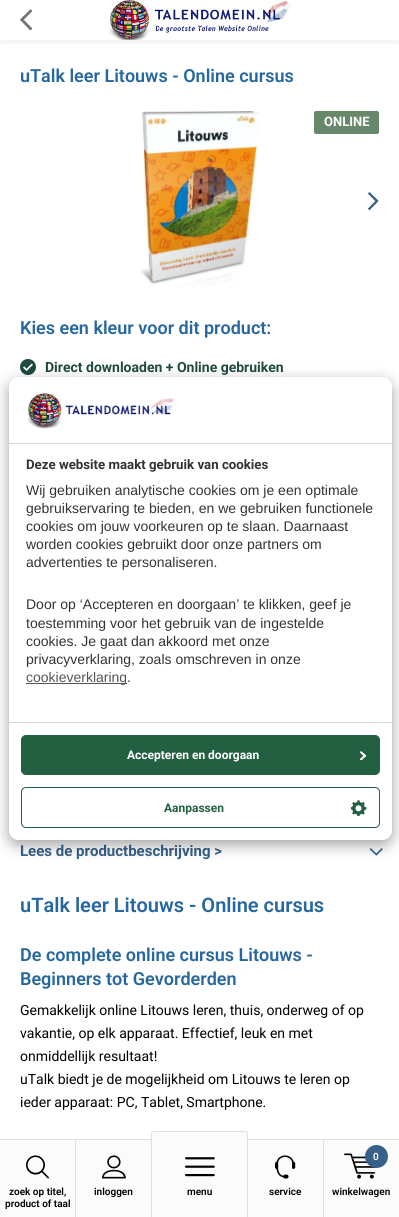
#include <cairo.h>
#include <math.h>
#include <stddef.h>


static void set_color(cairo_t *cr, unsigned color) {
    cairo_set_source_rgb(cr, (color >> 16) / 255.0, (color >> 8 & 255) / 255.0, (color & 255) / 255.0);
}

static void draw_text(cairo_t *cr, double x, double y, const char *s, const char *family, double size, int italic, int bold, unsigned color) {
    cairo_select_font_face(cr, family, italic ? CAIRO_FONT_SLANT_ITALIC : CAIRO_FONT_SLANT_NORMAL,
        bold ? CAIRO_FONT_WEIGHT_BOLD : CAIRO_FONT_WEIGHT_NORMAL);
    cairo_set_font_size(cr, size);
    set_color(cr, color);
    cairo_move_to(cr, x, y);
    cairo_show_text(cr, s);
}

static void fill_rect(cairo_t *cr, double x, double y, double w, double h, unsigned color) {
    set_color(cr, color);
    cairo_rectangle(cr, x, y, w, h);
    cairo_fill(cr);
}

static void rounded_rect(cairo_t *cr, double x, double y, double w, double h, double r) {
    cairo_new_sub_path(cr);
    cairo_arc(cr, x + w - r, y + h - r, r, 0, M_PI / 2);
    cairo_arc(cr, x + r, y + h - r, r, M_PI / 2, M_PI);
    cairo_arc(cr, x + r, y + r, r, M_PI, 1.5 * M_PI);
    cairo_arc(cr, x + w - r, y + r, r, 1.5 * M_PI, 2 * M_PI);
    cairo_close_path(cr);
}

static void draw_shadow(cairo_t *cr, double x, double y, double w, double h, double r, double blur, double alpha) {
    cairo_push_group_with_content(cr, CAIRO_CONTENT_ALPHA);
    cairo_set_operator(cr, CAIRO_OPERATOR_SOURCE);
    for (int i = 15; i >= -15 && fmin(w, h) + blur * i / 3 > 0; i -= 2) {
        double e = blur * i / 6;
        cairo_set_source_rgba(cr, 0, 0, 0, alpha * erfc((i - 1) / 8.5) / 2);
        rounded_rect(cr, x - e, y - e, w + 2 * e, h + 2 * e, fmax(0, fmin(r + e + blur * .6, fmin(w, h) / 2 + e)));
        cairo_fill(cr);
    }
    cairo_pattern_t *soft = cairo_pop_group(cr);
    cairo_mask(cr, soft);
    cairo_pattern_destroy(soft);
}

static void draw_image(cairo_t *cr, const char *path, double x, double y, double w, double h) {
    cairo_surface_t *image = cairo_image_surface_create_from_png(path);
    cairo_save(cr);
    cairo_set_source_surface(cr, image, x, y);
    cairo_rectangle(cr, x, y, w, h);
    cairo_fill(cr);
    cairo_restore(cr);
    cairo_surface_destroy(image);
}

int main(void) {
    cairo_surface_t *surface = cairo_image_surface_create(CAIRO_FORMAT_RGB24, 399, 1217);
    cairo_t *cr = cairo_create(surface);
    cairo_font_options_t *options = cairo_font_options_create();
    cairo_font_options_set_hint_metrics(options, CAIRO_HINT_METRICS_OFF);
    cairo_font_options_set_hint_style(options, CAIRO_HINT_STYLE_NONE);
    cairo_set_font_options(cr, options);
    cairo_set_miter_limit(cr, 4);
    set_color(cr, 0xFFFFFF);
    cairo_paint(cr);
    draw_text(cr, 20, 82, "uTalk leer Litouws - Online cursus", "Roboto SemiBold", 18, 0, 0, 0x25679E);
    draw_image(cr, "assets/img1.png", 140, 111, 120, 178);
    draw_image(cr, "assets/img2.png", 368, 192, 11, 19);
    set_color(cr, 0x68886B);
    rounded_rect(cr, 314, 111, 65, 23, 2);
    cairo_fill(cr);
    draw_text(cr, 324, 126, "ONLINE", "Roboto", 13, 0, 1, 0xFFFFFF);
    draw_text(cr, 20, 334, "Kies een kleur voor dit product:", "Roboto SemiBold", 18, 0, 0, 0x25679E);
    draw_image(cr, "assets/img3.png", 20, 359, 16, 16);
    draw_text(cr, 45, 372, "Direct downloaden + Online gebruiken", "Roboto", 14, 0, 1, 0x1E4A41);
    draw_text(cr, 20, 856, "Lees de productbeschrijving >", "Roboto", 15, 0, 1, 0x376189);
    draw_image(cr, "assets/img4.png", 369, 848, 14, 8);
    draw_text(cr, 20, 912, "uTalk leer Litouws - Online cursus", "Roboto SemiBold", 20, 0, 0, 0x25679E);
    draw_text(cr, 20, 961, "De complete online cursus Litouws -", "Roboto SemiBold", 18, 0, 0, 0x25679E);
    draw_text(cr, 20, 985, "Beginners tot Gevorderden", "Roboto SemiBold", 18, 0, 0, 0x25679E);
    draw_text(cr, 20, 1015, "Gemakkelijk online Litouws leren, thuis, onderweg of op", "Roboto", 14, 0, 0, 0x000000);
    draw_text(cr, 20, 1038, "vakantie, op elk apparaat. Effectief, leuk en met", "Roboto", 14, 0, 0, 0x000000);
    draw_text(cr, 20, 1061, "onmiddellijk resultaat!", "Roboto", 14, 0, 0, 0x000000);
    draw_text(cr, 20, 1084, "uTalk biedt je de mogelijkheid om Litouws te leren op", "Roboto", 14, 0, 0, 0x000000);
    draw_text(cr, 20, 1107, "ieder apparaat: PC, Tablet, Smartphone.", "Roboto", 14, 0, 0, 0x000000);
    cairo_save(cr);
    cairo_rectangle(cr, 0, 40, 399, 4);
    cairo_clip(cr);
    set_color(cr, 0x000000);
    draw_shadow(cr, 0, 4, 399, 40, 0, 2, 0.05);
    cairo_restore(cr);
    draw_image(cr, "assets/img5.png", 20, 9, 13, 22);
    draw_image(cr, "assets/img6.png", 109, 0, 182, 40);
    fill_rect(cr, 0, 1140, 75, 77, 0xFBFBFB);
    draw_image(cr, "assets/img7.png", 26, 1155, 23, 24);
    draw_text(cr, 9, 1195, "zoek op titel,", "Roboto SemiBold", 10, 0, 0, 0x000000);
    draw_text(cr, 5, 1207, "product of taal", "Roboto SemiBold", 10, 0, 0, 0x000000);
    fill_rect(cr, 76, 1140, 75, 77, 0xFBFBFB);
    fill_rect(cr, 0, 1139, 151, 1, 0xDFDFDF);
    fill_rect(cr, 75, 1139, 1, 78, 0xDFDFDF);
    draw_image(cr, "assets/img8.png", 102, 1155, 24, 24);
    draw_text(cr, 94, 1195, "inloggen", "Roboto SemiBold", 10, 0, 0, 0x000000);
    fill_rect(cr, 152, 1140, 95, 77, 0xFBFBFB);
    fill_rect(cr, 151, 1139, 1, 78, 0xDFDFDF);
    fill_rect(cr, 247, 1139, 152, 1, 0xDFDFDF);
    fill_rect(cr, 247, 1139, 1, 78, 0xDFDFDF);
    set_color(cr, 0xFBFBFB);
    cairo_new_path(cr);
    cairo_move_to(cr, 154, 1131);
    cairo_line_to(cr, 245, 1131);
    cairo_curve_to(cr, 246.5, 1131, 248, 1132.5, 248, 1134);
    cairo_line_to(cr, 248, 1140);
    cairo_line_to(cr, 151, 1140);
    cairo_line_to(cr, 151, 1134);
    cairo_curve_to(cr, 151, 1132.5, 152.5, 1131, 154, 1131);
    cairo_close_path(cr);
    cairo_fill(cr);
    set_color(cr, 0xDFDFDF);
    cairo_set_fill_rule(cr, CAIRO_FILL_RULE_EVEN_ODD);
    cairo_new_path(cr);
    cairo_move_to(cr, 154, 1131);
    cairo_line_to(cr, 245, 1131);
    cairo_curve_to(cr, 247, 1131, 248, 1132, 248, 1134);
    cairo_line_to(cr, 248, 1140);
    cairo_line_to(cr, 151, 1140);
    cairo_curve_to(cr, 151, 1137, 150, 1131, 154, 1131);
    cairo_close_path(cr);
    cairo_move_to(cr, 154, 1132);
    cairo_line_to(cr, 245, 1132);
    cairo_curve_to(cr, 246, 1132, 247, 1133, 247, 1134);
    cairo_line_to(cr, 247, 1140);
    cairo_line_to(cr, 152, 1140);
    cairo_curve_to(cr, 152, 1138, 151, 1132, 154, 1132);
    cairo_close_path(cr);
    cairo_fill(cr);
    draw_image(cr, "assets/img9.png", 185, 1157, 30, 20);
    draw_text(cr, 187, 1195, "menu", "Roboto SemiBold", 10, 0, 0, 0x000000);
    fill_rect(cr, 248, 1140, 75, 77, 0xFBFBFB);
    draw_image(cr, "assets/img10.png", 275, 1155, 21, 24);
    draw_text(cr, 269, 1195, "service", "Roboto SemiBold", 10, 0, 0, 0x000000);
    fill_rect(cr, 324, 1140, 75, 77, 0xFBFBFB);
    fill_rect(cr, 323, 1139, 1, 78, 0xDFDFDF);
    draw_image(cr, "assets/img11.png", 344, 1153, 33, 26);
    set_color(cr, 0x376189);
    cairo_arc(cr, 376.5, 1156.5, 11.5, 0, 2 * M_PI);
    cairo_fill(cr);
    draw_text(cr, 373, 1160, "0", "Roboto SemiBold", 10, 0, 0, 0xFFFFFF);
    draw_text(cr, 332, 1195, "winkelwagen", "Roboto SemiBold", 10, 0, 0, 0x000000);
    set_color(cr, 0x000000);
    draw_shadow(cr, 9, 382, 383, 463, 10, 7.5, 0.19);
    draw_shadow(cr, 9, 382, 383, 463, 10, 7.5, 0.2);
    set_color(cr, 0xFFFFFF);
    rounded_rect(cr, 9, 377, 383, 463, 10);
    cairo_fill(cr);
    cairo_new_path(cr);
    cairo_move_to(cr, 19, 377);
    cairo_line_to(cr, 382, 377);
    cairo_curve_to(cr, 387.5, 377, 392, 381.5, 392, 387);
    cairo_line_to(cr, 392, 444);
    cairo_line_to(cr, 9, 444);
    cairo_line_to(cr, 9, 387);
    cairo_curve_to(cr, 9, 381.5, 13.5, 377, 19, 377);
    cairo_close_path(cr);
    cairo_fill(cr);
    fill_rect(cr, 9, 443, 383, 1, 0xD6D6D6);
    draw_image(cr, "assets/img12.png", 28, 393, 148, 36);
    draw_text(cr, 26, 469, "Deze website maakt gebruik van cookies", "Roboto", 13.25, 0, 1, 0x333333);
    draw_text(cr, 26, 495, "Wij gebruiken analytische cookies om je een optimale", "Liberation Sans", 14, 0, 0, 0x333333);
    draw_text(cr, 26, 513, "gebruikservaring te bieden, en we gebruiken functionele", "Liberation Sans", 14, 0, 0, 0x333333);
    draw_text(cr, 26, 531, "cookies om jouw voorkeuren op te slaan. Daarnaast", "Liberation Sans", 14, 0, 0, 0x333333);
    draw_text(cr, 26, 549, "worden cookies gebruikt door onze partners om", "Liberation Sans", 14, 0, 0, 0x333333);
    draw_text(cr, 26, 567, "advertenties te personaliseren.", "Liberation Sans", 14, 0, 0, 0x333333);
    draw_text(cr, 26, 609, "Door op ‘Accepteren en doorgaan’ te klikken, geef je", "Liberation Sans", 14, 0, 0, 0x333333);
    draw_text(cr, 26, 628, "toestemming voor het gebruik van de ingestelde", "Liberation Sans", 14, 0, 0, 0x333333);
    draw_text(cr, 26, 646, "cookies. Je gaat dan akkoord met onze", "Liberation Sans", 14, 0, 0, 0x333333);
    draw_text(cr, 26, 664, "privacyverklaring, zoals omschreven in onze", "Liberation Sans", 14, 0, 0, 0x333333);
    fill_rect(cr, 26, 683, 101, 1, 0x555555);
    draw_text(cr, 26, 682, "cookieverklaring", "Liberation Sans", 14, 0, 0, 0x555555);
    draw_text(cr, 127, 682, ".", "Liberation Sans", 14, 0, 0, 0x333333);
    set_color(cr, 0xFFFFFF);
    cairo_new_path(cr);
    cairo_move_to(cr, 9, 722);
    cairo_line_to(cr, 392, 722);
    cairo_line_to(cr, 392, 830);
    cairo_curve_to(cr, 392, 835.5, 387.5, 840, 382, 840);
    cairo_line_to(cr, 19, 840);
    cairo_curve_to(cr, 13.5, 840, 9, 835.5, 9, 830);
    cairo_close_path(cr);
    cairo_fill(cr);
    fill_rect(cr, 9, 722, 383, 1, 0xD6D6D6);
    set_color(cr, 0x235F41);
    rounded_rect(cr, 21.5, 735.5, 358, 39, 4.5);
    cairo_fill_preserve(cr);
    cairo_set_line_width(cr, 1);
    cairo_stroke(cr);
    draw_text(cr, 127, 759, "Accepteren en doorgaan", "Roboto", 12, 0, 1, 0xFFFFFF);
    draw_image(cr, "assets/img13.png", 360, 751, 6, 9);
    rounded_rect(cr, 21.5, 787.5, 358, 40, 4.5);
    set_color(cr, 0x235F41);
    cairo_stroke(cr);
    draw_text(cr, 164, 812, "Aanpassen", "Roboto", 12, 0, 1, 0x235F41);
    draw_image(cr, "assets/img14.png", 351, 800, 16, 16);
    cairo_surface_write_to_png(surface, "output.png");
    cairo_font_options_destroy(options);
    cairo_destroy(cr);
    cairo_surface_destroy(surface);
    return 0;
}
